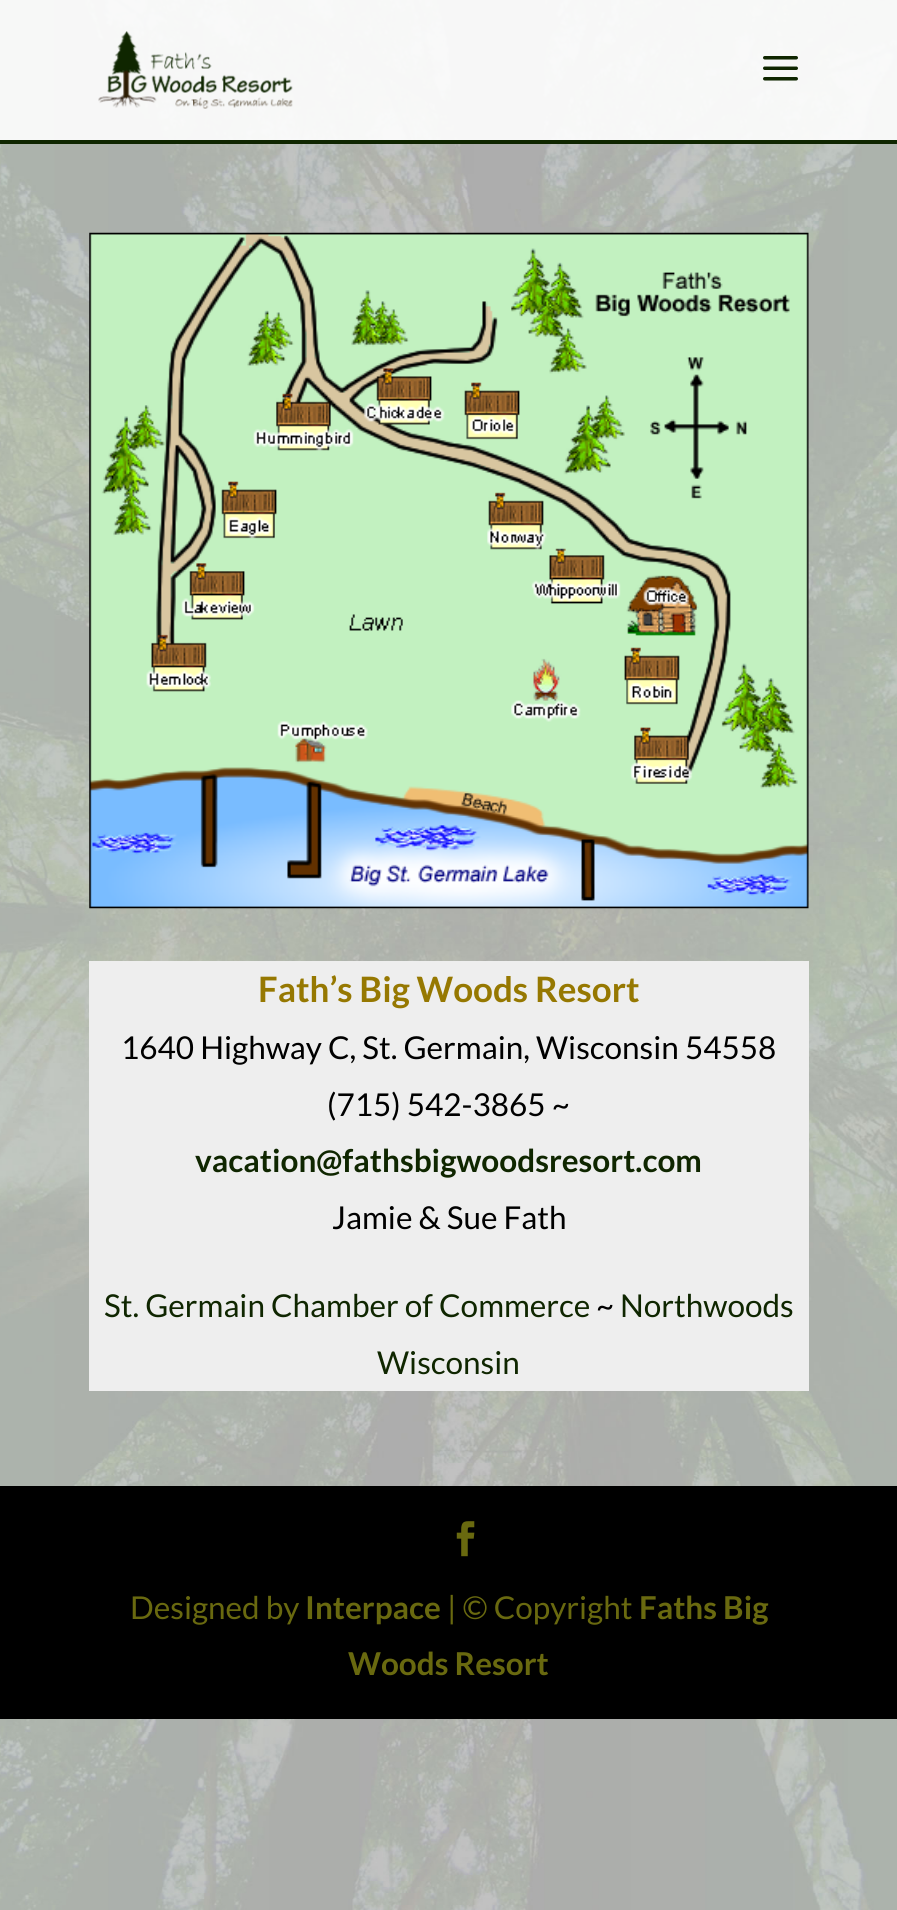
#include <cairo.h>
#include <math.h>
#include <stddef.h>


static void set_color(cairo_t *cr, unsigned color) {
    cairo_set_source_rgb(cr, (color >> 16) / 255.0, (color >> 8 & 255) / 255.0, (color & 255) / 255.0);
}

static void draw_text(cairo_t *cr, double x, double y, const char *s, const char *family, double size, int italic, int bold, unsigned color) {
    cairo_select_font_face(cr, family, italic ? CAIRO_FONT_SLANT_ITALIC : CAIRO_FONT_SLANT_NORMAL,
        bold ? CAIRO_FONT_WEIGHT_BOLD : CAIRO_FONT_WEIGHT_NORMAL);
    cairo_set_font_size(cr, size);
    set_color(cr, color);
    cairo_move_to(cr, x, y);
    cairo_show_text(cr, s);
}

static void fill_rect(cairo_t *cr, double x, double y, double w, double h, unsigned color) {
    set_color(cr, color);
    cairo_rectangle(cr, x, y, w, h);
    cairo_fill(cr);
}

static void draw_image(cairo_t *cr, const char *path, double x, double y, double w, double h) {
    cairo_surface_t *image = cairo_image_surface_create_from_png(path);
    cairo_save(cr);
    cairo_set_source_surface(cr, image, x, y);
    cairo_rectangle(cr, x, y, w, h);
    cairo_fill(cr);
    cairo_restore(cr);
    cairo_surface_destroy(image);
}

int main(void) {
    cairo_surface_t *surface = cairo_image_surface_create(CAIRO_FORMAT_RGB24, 897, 1910);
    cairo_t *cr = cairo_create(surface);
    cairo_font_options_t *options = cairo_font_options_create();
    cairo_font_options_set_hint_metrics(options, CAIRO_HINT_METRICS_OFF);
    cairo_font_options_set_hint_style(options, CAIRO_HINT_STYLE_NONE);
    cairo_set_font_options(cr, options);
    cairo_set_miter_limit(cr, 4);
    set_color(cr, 0xFFFFFF);
    cairo_paint(cr);
    draw_image(cr, "assets/img1.png", 0, 0, 897, 1910);
    cairo_set_source_rgba(cr, 1, 1, 1, 0.9);
    cairo_rectangle(cr, 0, 0, 897, 140);
    cairo_fill(cr);
    fill_rect(cr, 0, 140, 897, 4, 0x0F2600);
    draw_image(cr, "assets/img2.png", 98, 31, 195, 78);
    draw_image(cr, "assets/img3.png", 763, 56, 35, 25);
    draw_image(cr, "assets/img4.png", 89, 232, 720, 677);
    fill_rect(cr, 89, 961, 720, 430, 0xEEEEEE);
    draw_text(cr, 258, 1002, "Fath’s Big Woods Resort", "Lato", 35, 0, 1, 0x967801);
    draw_text(cr, 121, 1059, "1640 Highway C, St. Germain, Wisconsin 54558", "Lato", 31.5, 0, 0, 0x000000);
    draw_text(cr, 327, 1116, "(715) 542-3865 ~", "Lato", 31.5, 0, 0, 0x000000);
    draw_text(cr, 195, 1172, "vacation@fathsbigwoodsresort.com", "Lato", 31.5, 0, 1, 0x0F2600);
    draw_text(cr, 332, 1229, "Jamie & Sue Fath", "Lato", 31.5, 0, 0, 0x000000);
    draw_text(cr, 104, 1317, "St. Germain Chamber of Commerce", "Lato", 31.5, 0, 0, 0x0F2600);
    draw_text(cr, 596, 1317, "~", "Lato", 31.5, 0, 0, 0x000000);
    draw_text(cr, 620, 1317, "Northwoods", "Lato", 31.5, 0, 0, 0x0F2600);
    draw_text(cr, 377, 1374, "Wisconsin", "Lato", 31.5, 0, 0, 0x0F2600);
    fill_rect(cr, 0, 1486, 897, 233, 0x000000);
    draw_image(cr, "assets/img5.png", 456, 1521, 19, 36);
    draw_text(cr, 130, 1619, "Designed by", "Lato", 31.5, 0, 0, 0x69690F);
    draw_text(cr, 305, 1619, "Interpace", "Lato", 31.5, 0, 1, 0x69690F);
    draw_text(cr, 447, 1619, "| © Copyright", "Lato", 31.5, 0, 0, 0x69690F);
    draw_text(cr, 639, 1619, "Faths Big", "Lato", 31.5, 0, 1, 0x69690F);
    draw_text(cr, 348, 1675, "Woods Resort", "Lato", 31.5, 0, 1, 0x69690F);
    cairo_surface_write_to_png(surface, "output.png");
    cairo_font_options_destroy(options);
    cairo_destroy(cr);
    cairo_surface_destroy(surface);
    return 0;
}
